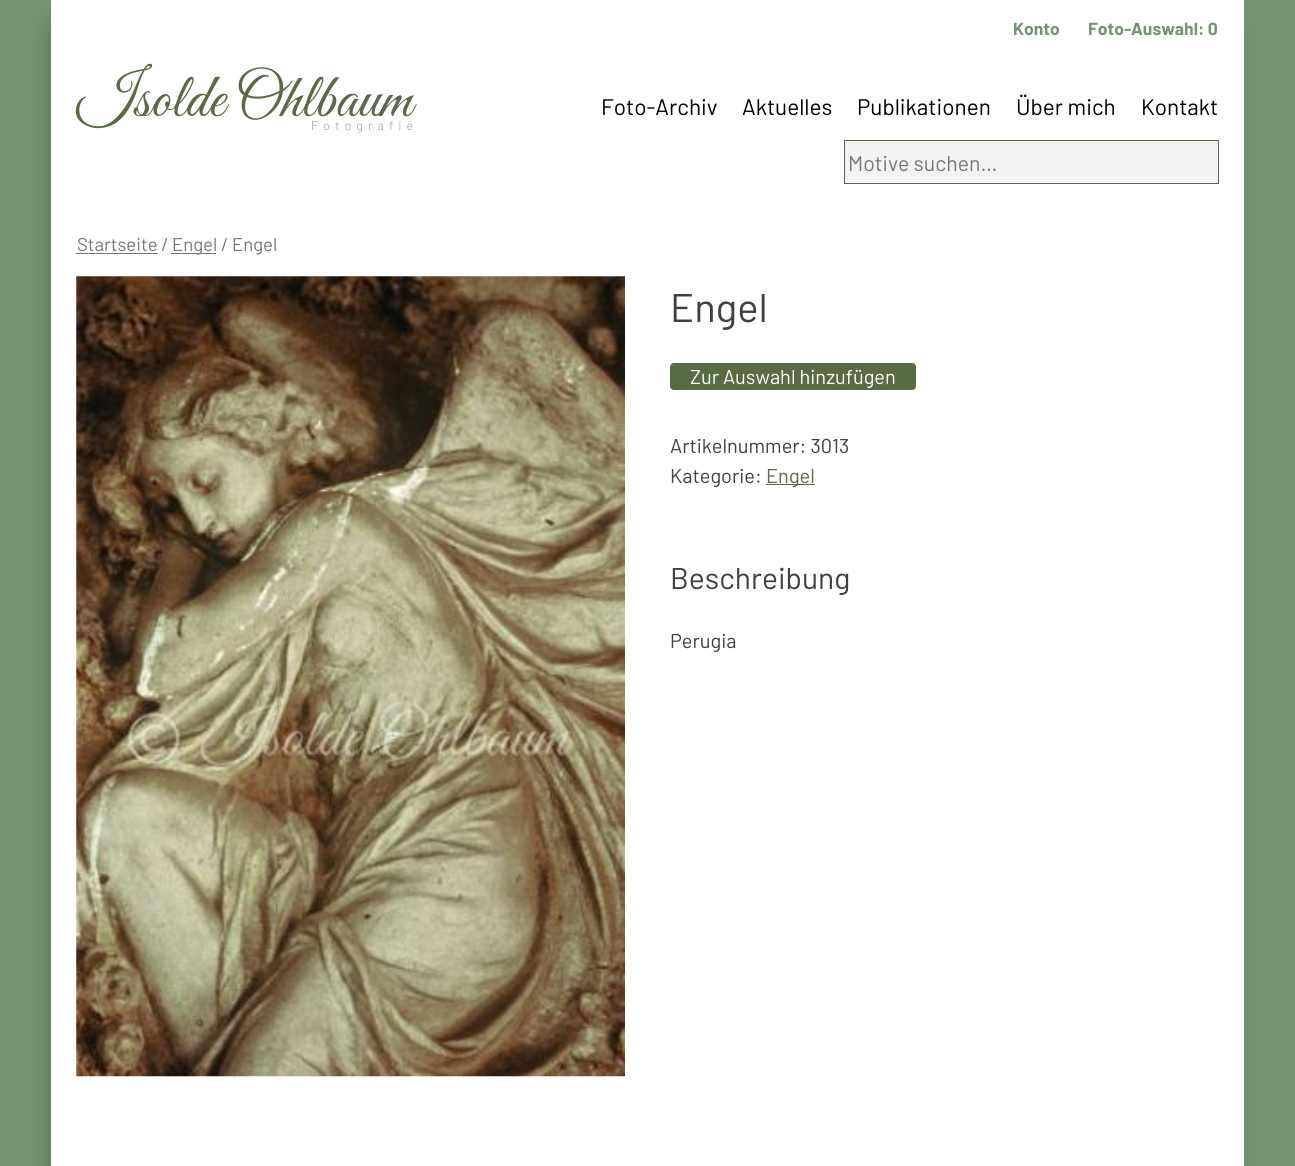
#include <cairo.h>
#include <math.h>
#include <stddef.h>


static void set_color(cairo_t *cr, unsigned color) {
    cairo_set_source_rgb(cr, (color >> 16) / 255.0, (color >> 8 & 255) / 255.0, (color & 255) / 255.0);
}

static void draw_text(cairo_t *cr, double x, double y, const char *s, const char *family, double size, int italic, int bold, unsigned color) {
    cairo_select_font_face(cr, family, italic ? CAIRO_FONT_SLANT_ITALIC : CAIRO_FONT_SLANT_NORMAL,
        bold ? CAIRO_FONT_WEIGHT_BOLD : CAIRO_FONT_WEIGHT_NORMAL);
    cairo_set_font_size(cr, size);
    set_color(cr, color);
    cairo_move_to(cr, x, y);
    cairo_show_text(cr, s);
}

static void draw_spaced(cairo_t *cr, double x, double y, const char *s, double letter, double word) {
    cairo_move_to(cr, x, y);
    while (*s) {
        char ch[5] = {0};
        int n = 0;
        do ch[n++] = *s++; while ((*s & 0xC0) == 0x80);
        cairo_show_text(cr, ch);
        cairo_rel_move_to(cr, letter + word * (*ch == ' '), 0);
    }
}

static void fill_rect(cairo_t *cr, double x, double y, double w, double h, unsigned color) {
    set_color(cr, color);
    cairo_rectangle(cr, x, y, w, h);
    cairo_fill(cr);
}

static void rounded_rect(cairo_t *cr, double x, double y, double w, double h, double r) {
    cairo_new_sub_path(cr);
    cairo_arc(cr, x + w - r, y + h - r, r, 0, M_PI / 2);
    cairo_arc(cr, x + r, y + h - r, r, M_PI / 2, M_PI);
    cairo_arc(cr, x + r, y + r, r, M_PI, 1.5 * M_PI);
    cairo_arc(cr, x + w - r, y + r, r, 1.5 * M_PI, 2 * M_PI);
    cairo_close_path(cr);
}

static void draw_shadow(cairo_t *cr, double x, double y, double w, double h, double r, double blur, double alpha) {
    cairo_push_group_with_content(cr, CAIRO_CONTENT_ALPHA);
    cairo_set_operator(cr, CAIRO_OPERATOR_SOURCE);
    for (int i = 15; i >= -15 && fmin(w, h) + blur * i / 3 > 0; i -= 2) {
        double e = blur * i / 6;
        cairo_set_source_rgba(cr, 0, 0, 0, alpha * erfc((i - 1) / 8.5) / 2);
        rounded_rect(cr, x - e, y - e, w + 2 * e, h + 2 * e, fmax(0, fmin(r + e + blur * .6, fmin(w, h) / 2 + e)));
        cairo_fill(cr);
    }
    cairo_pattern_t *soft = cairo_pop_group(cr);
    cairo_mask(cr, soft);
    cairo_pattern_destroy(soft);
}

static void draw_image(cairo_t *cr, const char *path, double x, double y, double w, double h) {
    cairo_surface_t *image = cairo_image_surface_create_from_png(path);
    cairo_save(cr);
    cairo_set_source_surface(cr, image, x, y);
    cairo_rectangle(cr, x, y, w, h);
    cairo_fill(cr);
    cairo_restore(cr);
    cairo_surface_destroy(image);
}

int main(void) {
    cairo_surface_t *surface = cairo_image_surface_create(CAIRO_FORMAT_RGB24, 1295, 1166);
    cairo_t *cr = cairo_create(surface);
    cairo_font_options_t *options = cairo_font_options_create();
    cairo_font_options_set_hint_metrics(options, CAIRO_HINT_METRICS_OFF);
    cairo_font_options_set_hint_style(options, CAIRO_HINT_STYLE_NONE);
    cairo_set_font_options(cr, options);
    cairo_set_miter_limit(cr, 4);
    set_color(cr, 0x749372);
    cairo_paint(cr);
    set_color(cr, 0x000000);
    draw_shadow(cr, 65, 31, 1153, 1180, 0, 15, 0.75);
    fill_rect(cr, 51, 0, 1193, 1166, 0xFFFFFF);
    draw_text(cr, 1013, 35, "Konto", "Barlow", 17.5, 0, 1, 0x749372);
    draw_text(cr, 1088, 35, "Foto-Auswahl: 0", "Barlow", 17.5, 0, 1, 0x749372);
    draw_text(cr, 77, 116, "Isolde Ohlbaum", "Great Vibes", 62.5, 0, 0, 0x576B44);
    cairo_select_font_face(cr, "Barlow", CAIRO_FONT_SLANT_NORMAL, CAIRO_FONT_WEIGHT_NORMAL);
    cairo_set_font_size(cr, 12.5);
    set_color(cr, 0xAFAFAF);
    draw_spaced(cr, 311, 130, "Fotografie", 5, 0);
    draw_text(cr, 601, 115, "Foto-Archiv", "Barlow", 22.5, 0, 0, 0x000000);
    draw_text(cr, 742, 115, "Aktuelles", "Barlow", 22.5, 0, 0, 0x000000);
    draw_text(cr, 857, 115, "Publikationen", "Barlow", 22.5, 0, 0, 0x000000);
    draw_text(cr, 1016, 115, "Über mich", "Barlow", 22.5, 0, 0, 0x000000);
    draw_text(cr, 1141, 115, "Kontakt", "Barlow", 22.5, 0, 0, 0x000000);
    set_color(cr, 0xF3F3F3);
    cairo_rectangle(cr, 844.5, 140.5, 374, 43);
    cairo_fill_preserve(cr);
    set_color(cr, 0x576B44);
    cairo_set_line_width(cr, 1);
    cairo_stroke(cr);
    draw_text(cr, 848, 171, "Motive suchen…", "Barlow", 21.25, 0, 0, 0x767676);
    draw_text(cr, 77, 251, "Startseite /", "Barlow", 18.5, 0, 0, 0x767676);
    fill_rect(cr, 76, 253, 82, 1, 0x767676);
    fill_rect(cr, 171, 253, 45, 1, 0x767676);
    draw_text(cr, 172, 251, "Engel / Engel", "Barlow", 18.5, 0, 0, 0x767676);
    draw_image(cr, "assets/img1.png", 76, 276, 549, 801);
    draw_text(cr, 670, 322, "Engel", "Barlow", 40, 0, 0, 0x404040);
    set_color(cr, 0x576B44);
    rounded_rect(cr, 670, 363, 246, 27, 4);
    cairo_fill(cr);
    draw_text(cr, 690, 384, "Zur Auswahl hinzufügen", "Barlow", 20, 0, 0, 0xFFFFFF);
    draw_text(cr, 670, 453, "Artikelnummer: 3013", "Barlow", 20, 0, 0, 0x404040);
    draw_text(cr, 670, 483, "Kategorie:", "Barlow", 20, 0, 0, 0x404040);
    fill_rect(cr, 766, 484, 49, 1, 0x576B44);
    draw_text(cr, 766, 483, "Engel", "Barlow", 20, 0, 0, 0x576B44);
    draw_text(cr, 670, 589, "Beschreibung", "Barlow", 30, 0, 0, 0x404040);
    draw_text(cr, 670, 648, "Perugia", "Barlow", 20, 0, 0, 0x404040);
    cairo_surface_write_to_png(surface, "output.png");
    cairo_font_options_destroy(options);
    cairo_destroy(cr);
    cairo_surface_destroy(surface);
    return 0;
}
